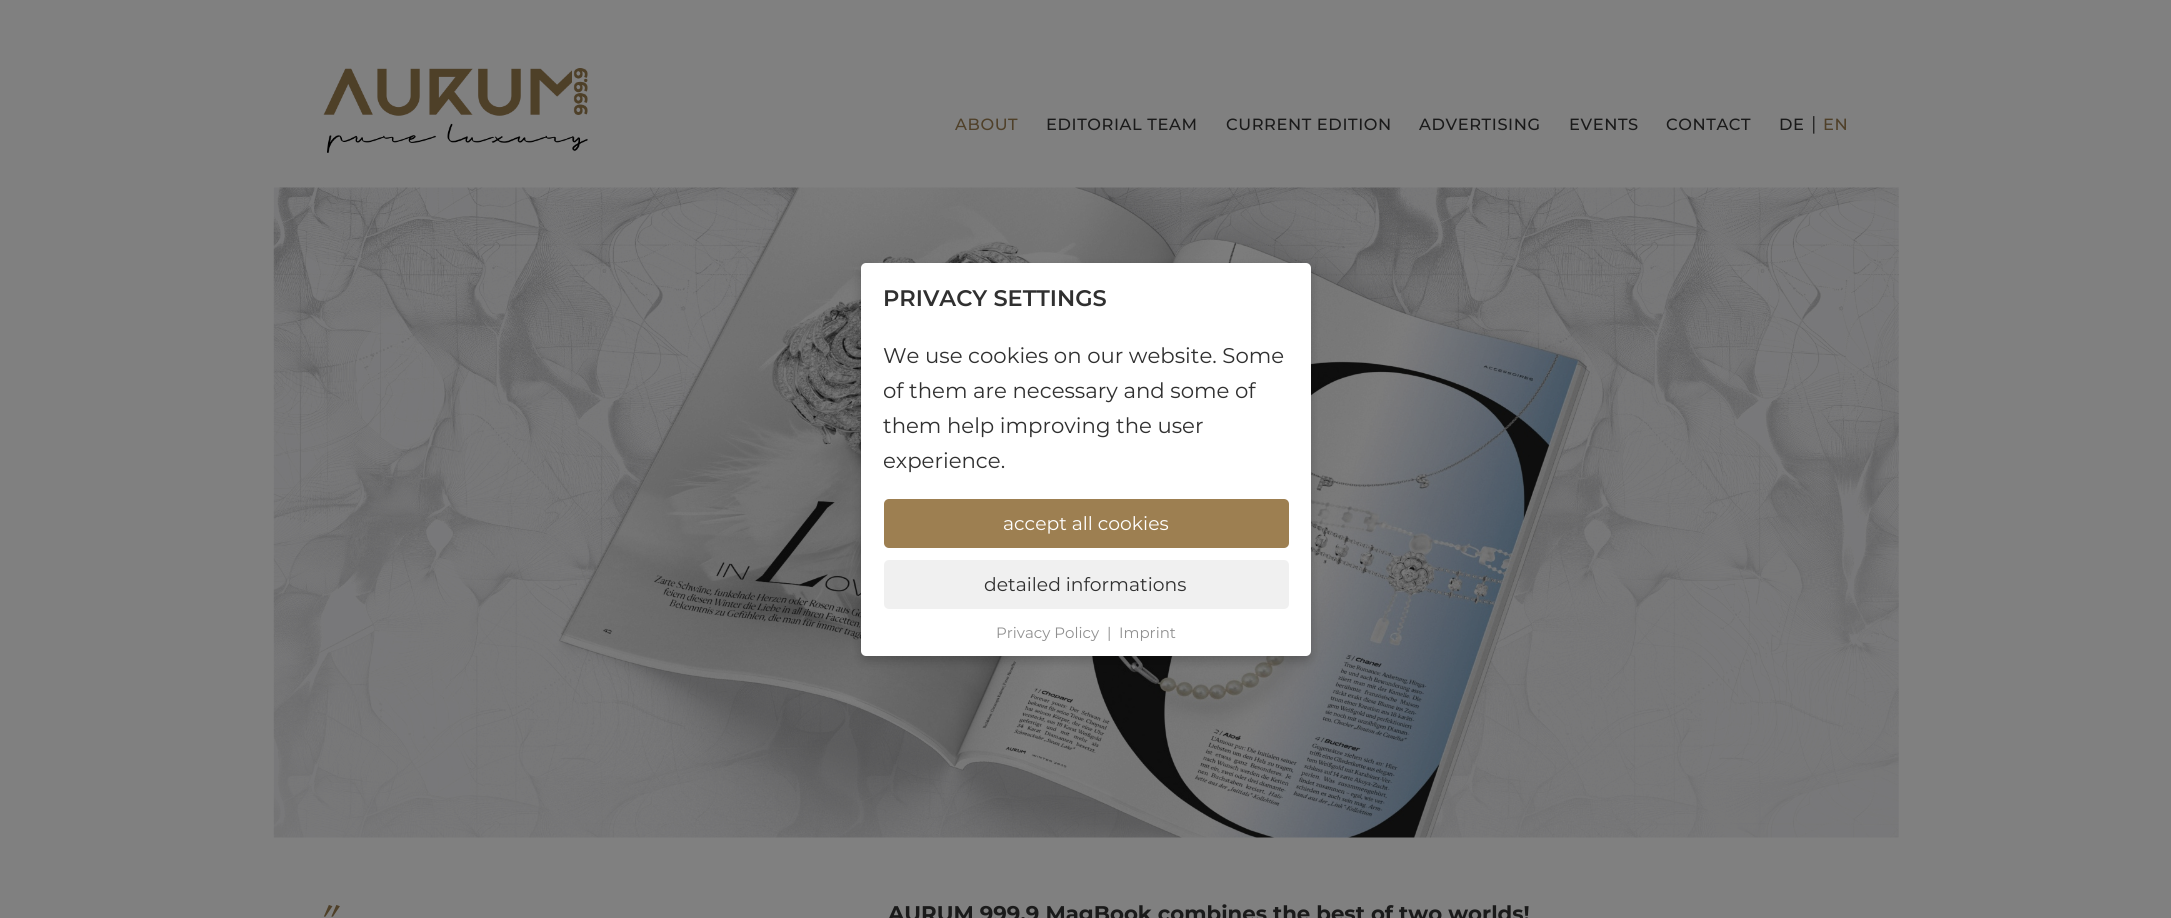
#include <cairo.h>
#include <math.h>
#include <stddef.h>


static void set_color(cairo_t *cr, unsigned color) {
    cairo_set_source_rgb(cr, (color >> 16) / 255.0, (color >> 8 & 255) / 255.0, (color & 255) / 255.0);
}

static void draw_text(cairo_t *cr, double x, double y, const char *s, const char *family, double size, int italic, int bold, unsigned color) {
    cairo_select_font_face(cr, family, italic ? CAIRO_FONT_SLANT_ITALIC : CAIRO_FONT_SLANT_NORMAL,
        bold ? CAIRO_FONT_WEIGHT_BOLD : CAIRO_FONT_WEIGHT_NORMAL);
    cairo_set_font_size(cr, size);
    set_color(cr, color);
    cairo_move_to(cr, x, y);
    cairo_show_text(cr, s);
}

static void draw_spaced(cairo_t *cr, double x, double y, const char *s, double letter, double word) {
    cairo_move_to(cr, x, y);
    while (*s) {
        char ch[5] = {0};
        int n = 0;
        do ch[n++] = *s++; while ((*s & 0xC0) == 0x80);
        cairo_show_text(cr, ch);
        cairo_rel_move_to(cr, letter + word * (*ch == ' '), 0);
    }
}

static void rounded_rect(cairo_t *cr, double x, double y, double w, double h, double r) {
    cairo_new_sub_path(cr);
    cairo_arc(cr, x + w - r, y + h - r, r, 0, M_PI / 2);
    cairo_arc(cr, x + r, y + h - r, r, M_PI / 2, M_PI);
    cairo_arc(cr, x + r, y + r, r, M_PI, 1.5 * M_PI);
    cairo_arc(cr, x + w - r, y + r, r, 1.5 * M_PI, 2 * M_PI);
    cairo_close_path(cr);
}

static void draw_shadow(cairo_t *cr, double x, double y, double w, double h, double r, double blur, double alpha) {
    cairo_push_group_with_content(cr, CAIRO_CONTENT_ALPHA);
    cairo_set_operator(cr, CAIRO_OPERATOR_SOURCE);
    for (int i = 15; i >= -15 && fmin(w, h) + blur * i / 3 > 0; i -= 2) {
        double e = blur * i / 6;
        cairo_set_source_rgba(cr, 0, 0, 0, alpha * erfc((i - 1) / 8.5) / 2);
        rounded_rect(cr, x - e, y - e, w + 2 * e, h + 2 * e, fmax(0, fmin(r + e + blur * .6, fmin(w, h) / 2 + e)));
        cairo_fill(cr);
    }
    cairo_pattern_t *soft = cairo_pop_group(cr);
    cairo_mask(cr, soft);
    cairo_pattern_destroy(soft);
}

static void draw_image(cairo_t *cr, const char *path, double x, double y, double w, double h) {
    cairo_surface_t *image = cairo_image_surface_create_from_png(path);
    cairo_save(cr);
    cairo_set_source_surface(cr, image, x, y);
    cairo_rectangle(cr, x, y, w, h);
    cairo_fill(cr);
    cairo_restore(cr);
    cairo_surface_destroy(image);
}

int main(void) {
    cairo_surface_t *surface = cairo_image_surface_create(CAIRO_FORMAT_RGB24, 2171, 918);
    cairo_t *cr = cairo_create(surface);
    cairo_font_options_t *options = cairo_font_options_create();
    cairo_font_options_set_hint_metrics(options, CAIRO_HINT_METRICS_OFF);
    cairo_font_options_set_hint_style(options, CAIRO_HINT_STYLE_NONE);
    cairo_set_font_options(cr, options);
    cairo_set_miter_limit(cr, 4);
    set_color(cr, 0x808080);
    cairo_paint(cr);
    draw_image(cr, "assets/img1.png", 323, 68, 265, 85);
    cairo_select_font_face(cr, "Montserrat Medium", CAIRO_FONT_SLANT_NORMAL, CAIRO_FONT_WEIGHT_NORMAL);
    cairo_set_font_size(cr, 16.25);
    set_color(cr, 0x4F4029);
    draw_spaced(cr, 955, 130, "ABOUT", 0.6, 0);
    set_color(cr, 0x1A1A1A);
    draw_spaced(cr, 1046, 130, "EDITORIAL TEAM", 0.6, 0);
    draw_spaced(cr, 1226, 130, "CURRENT EDITION", 0.6, 0);
    draw_spaced(cr, 1419, 130, "ADVERTISING", 0.6, 0);
    draw_spaced(cr, 1569, 130, "EVENTS", 0.6, 0);
    draw_spaced(cr, 1666, 130, "CONTACT", 0.6, 0);
    draw_spaced(cr, 1779, 130, "DE", 0.6, 0);
    draw_text(cr, 1811, 130, "|", "Montserrat", 18.75, 0, 0, 0x1A1A1A);
    cairo_select_font_face(cr, "Montserrat Medium", CAIRO_FONT_SLANT_NORMAL, CAIRO_FONT_WEIGHT_NORMAL);
    cairo_set_font_size(cr, 16.25);
    set_color(cr, 0x4F4029);
    draw_spaced(cr, 1823, 130, "EN", 0.6, 0);
    draw_image(cr, "assets/img2.png", 273, 187, 1626, 651);
    set_color(cr, 0x000000);
    draw_shadow(cr, 861, 268, 450, 393, 5, 5, 0.2);
    set_color(cr, 0xFFFFFF);
    rounded_rect(cr, 861, 263, 450, 393, 5);
    cairo_fill(cr);
    draw_text(cr, 883, 306, "PRIVACY SETTINGS", "Montserrat SemiBold", 22.5, 0, 0, 0x303030);
    draw_text(cr, 883, 363, "We use cookies on our website. Some", "Montserrat", 21.25, 0, 0, 0x303030);
    draw_text(cr, 883, 398, "of them are necessary and some of", "Montserrat", 21.25, 0, 0, 0x303030);
    draw_text(cr, 883, 433, "them help improving the user", "Montserrat", 21.25, 0, 0, 0x303030);
    draw_text(cr, 883, 468, "experience.", "Montserrat", 21.25, 0, 0, 0x303030);
    set_color(cr, 0x9D7F51);
    rounded_rect(cr, 884, 499, 405, 49, 5);
    cairo_fill(cr);
    draw_text(cr, 1003, 530, "accept all cookies", "Montserrat", 18.75, 0, 0, 0xFFFFFF);
    set_color(cr, 0xF0F0F0);
    rounded_rect(cr, 884, 560, 405, 49, 5);
    cairo_fill(cr);
    draw_text(cr, 984, 591, "detailed informations", "Montserrat", 18.75, 0, 0, 0x303030);
    draw_text(cr, 996, 638, "Privacy Policy", "Montserrat", 15, 0, 0, 0x909090);
    draw_text(cr, 1107, 638, "|", "Montserrat", 15, 0, 0, 0x909090);
    draw_text(cr, 1119, 638, "Imprint", "Montserrat", 15, 0, 0, 0x909090);
    cairo_select_font_face(cr, "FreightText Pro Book", CAIRO_FONT_SLANT_NORMAL, CAIRO_FONT_WEIGHT_NORMAL);
    cairo_set_font_size(cr, 48);
    set_color(cr, 0x4F4029);
    draw_spaced(cr, 323, 936, "\"", -1, 0);
    draw_text(cr, 888, 921, "AURUM 999,9 MagBook combines the best of two worlds!", "Montserrat", 21.25, 0, 1, 0x1A1A1A);
    cairo_surface_write_to_png(surface, "output.png");
    cairo_font_options_destroy(options);
    cairo_destroy(cr);
    cairo_surface_destroy(surface);
    return 0;
}
